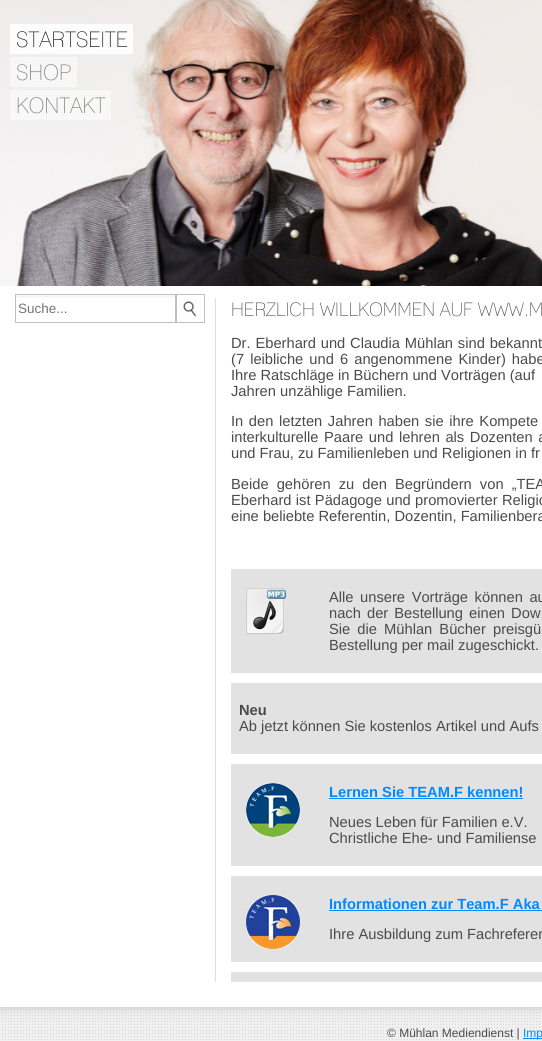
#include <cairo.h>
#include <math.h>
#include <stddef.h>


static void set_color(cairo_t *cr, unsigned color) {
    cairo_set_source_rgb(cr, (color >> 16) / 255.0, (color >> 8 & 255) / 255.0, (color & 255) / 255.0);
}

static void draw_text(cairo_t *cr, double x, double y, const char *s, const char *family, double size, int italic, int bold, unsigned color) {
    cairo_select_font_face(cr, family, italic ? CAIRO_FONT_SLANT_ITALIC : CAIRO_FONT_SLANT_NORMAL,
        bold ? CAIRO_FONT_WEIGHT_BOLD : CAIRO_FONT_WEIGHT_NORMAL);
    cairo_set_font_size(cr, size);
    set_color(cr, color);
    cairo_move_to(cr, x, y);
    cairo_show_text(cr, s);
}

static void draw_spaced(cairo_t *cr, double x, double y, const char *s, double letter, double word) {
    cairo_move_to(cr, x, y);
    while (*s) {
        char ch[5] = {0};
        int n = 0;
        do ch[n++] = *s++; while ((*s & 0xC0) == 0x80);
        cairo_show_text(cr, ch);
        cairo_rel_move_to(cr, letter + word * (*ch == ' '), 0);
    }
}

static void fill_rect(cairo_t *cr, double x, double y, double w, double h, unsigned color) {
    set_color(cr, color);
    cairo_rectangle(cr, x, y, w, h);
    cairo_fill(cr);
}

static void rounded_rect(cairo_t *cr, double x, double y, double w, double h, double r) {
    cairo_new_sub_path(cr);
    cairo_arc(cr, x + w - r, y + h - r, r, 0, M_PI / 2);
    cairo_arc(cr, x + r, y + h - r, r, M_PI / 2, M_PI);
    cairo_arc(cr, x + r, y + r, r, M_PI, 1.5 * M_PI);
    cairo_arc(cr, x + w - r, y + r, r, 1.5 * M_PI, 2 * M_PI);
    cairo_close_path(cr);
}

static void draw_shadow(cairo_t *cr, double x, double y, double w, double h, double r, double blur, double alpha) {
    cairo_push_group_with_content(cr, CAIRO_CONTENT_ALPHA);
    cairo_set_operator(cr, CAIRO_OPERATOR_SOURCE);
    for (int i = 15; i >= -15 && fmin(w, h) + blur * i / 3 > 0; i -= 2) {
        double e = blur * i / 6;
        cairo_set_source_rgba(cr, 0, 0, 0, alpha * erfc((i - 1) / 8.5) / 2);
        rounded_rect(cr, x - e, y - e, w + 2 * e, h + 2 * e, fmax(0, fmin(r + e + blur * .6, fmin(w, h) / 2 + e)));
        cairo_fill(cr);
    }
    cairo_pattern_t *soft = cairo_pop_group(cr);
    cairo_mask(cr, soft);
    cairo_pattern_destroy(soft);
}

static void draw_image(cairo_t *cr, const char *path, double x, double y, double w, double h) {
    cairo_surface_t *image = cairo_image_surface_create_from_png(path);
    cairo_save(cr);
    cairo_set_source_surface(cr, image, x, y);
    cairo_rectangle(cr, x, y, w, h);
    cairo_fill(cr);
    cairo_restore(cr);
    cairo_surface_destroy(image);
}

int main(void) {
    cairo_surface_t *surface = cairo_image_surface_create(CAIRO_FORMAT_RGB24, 542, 1041);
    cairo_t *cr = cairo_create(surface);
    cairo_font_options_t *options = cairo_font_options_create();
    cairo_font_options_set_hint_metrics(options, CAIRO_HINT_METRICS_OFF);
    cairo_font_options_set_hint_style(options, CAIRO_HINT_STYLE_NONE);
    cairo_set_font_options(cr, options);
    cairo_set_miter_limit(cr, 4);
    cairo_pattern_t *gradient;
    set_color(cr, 0xFFFFFF);
    cairo_paint(cr);
    draw_image(cr, "assets/img1.png", 0, 1007, 542, 34);
    set_color(cr, 0xBEBEBE);
    draw_shadow(cr, 0, -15, 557, 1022, 0, 5, 1);
    fill_rect(cr, 0, 286, 542, 721, 0xFFFFFF);
    draw_image(cr, "assets/img2.png", 0, 0, 542, 286);
    cairo_set_source_rgba(cr, 1, 1, 1, 0.9);
    cairo_rectangle(cr, 10, 24, 123, 30);
    cairo_fill(cr);
    draw_text(cr, 16, 47, "STARTSEITE", "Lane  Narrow", 21.5, 0, 0, 0x191919);
    cairo_set_source_rgba(cr, 1, 1, 1, 0.5);
    cairo_rectangle(cr, 10, 57, 67, 30);
    cairo_fill(cr);
    draw_text(cr, 16, 80, "SHOP", "Lane  Narrow", 21.5, 0, 0, 0x7C7B7B);
    cairo_set_source_rgba(cr, 1, 1, 1, 0.5);
    cairo_rectangle(cr, 10, 90, 101, 30);
    cairo_fill(cr);
    draw_text(cr, 16, 113, "KONTAKT", "Lane  Narrow", 21.5, 0, 0, 0x7C7B7B);
    gradient = cairo_pattern_create_linear(96, 295, 96, 322);
    cairo_pattern_add_color_stop_rgba(gradient, 0, 1, 1, 1, 1);
    cairo_pattern_add_color_stop_rgba(gradient, 0.04, 0.945, 0.945, 0.945, 1);
    cairo_pattern_add_color_stop_rgba(gradient, 0.12, 1, 1, 1, 1);
    cairo_set_source(cr, gradient);
    cairo_pattern_destroy(gradient);
    cairo_rectangle(cr, 16, 295, 159, 3);
    cairo_fill(cr);
    cairo_rectangle(cr, 15.5, 294.5, 160, 28);
    set_color(cr, 0xC0C0C0);
    cairo_set_line_width(cr, 1);
    cairo_stroke(cr);
    draw_text(cr, 18, 313, "Suche...", "Liberation Sans", 13.5, 0, 0, 0x757575);
    cairo_rectangle(cr, 176.5, 294.5, 28, 28);
    set_color(cr, 0xC0C0C0);
    cairo_stroke(cr);
    draw_image(cr, "assets/img3.png", 177, 295, 27, 22);
    fill_rect(cr, 215, 298, 1, 684, 0xDDDDDD);
    draw_text(cr, 231, 316, "HERZLICH WILLKOMMEN AUF WWW.M", "Lane  Narrow", 18.7, 0, 0, 0x4B4B4B);
    cairo_select_font_face(cr, "Liberation Sans", CAIRO_FONT_SLANT_NORMAL, CAIRO_FONT_WEIGHT_NORMAL);
    cairo_set_font_size(cr, 14.7);
    draw_spaced(cr, 231, 348, "Dr. Eberhard und Claudia Mühlan sind bekannt", 0, 0.75);
    draw_spaced(cr, 231, 364, "(7 leibliche und 6 angenommene Kinder) habe", 0, 2);
    draw_text(cr, 231, 380, "Ihre Ratschläge in Büchern und Vorträgen (auf", "Liberation Sans", 14.7, 0, 0, 0x4B4B4B);
    draw_text(cr, 231, 396, "Jahren unzählige Familien.", "Liberation Sans", 14.7, 0, 0, 0x4B4B4B);
    draw_spaced(cr, 231, 426, "In den letzten Jahren haben sie ihre Kompete", 0, 1.5);
    draw_spaced(cr, 231, 442, "interkulturelle Paare und lehren als Dozenten a", 0, 1.5);
    draw_text(cr, 231, 458, "und Frau, zu Familienleben und Religionen in fr", "Liberation Sans", 14.7, 0, 0, 0x4B4B4B);
    draw_spaced(cr, 231, 489, "Beide gehören zu den Begründern von „TEA", 0, 4);
    draw_spaced(cr, 231, 505, "Eberhard ist Pädagoge und promovierter Religio", 0, 0.25);
    draw_text(cr, 231, 521, "eine beliebte Referentin, Dozentin, Familienbera", "Liberation Sans", 14.7, 0, 0, 0x4B4B4B);
    fill_rect(cr, 231, 569, 311, 104, 0xE2E2E2);
    draw_image(cr, "assets/img4.png", 246, 588, 41, 47);
    set_color(cr, 0x4B4B4B);
    draw_spaced(cr, 329, 602, "Alle unsere Vorträge können au", 0, 2.5);
    draw_spaced(cr, 329, 618, "nach der Bestellung einen Dow", 0, 2);
    draw_spaced(cr, 329, 634, "Sie die Mühlan Bücher preisgü", 0, 3);
    draw_text(cr, 329, 650, "Bestellung per mail zugeschickt.", "Liberation Sans", 14.7, 0, 0, 0x4B4B4B);
    fill_rect(cr, 231, 683, 311, 71, 0xE2E2E2);
    draw_text(cr, 239, 715, "Neu", "Liberation Sans", 14.7, 0, 1, 0x4B4B4B);
    draw_text(cr, 239, 731, "Ab jetzt können Sie kostenlos Artikel und Aufs", "Liberation Sans", 14.7, 0, 0, 0x4B4B4B);
    fill_rect(cr, 231, 764, 311, 102, 0xE2E2E2);
    draw_image(cr, "assets/img5.png", 246, 783, 54, 54);
    draw_text(cr, 329, 797, "Lernen Sie TEAM.F kennen!", "Liberation Sans", 14.7, 0, 1, 0x008AFF);
    fill_rect(cr, 329, 798, 194, 1, 0x008AFF);
    draw_text(cr, 329, 827, "Neues Leben für Familien e.V.", "Liberation Sans", 14.7, 0, 0, 0x4B4B4B);
    draw_text(cr, 329, 843, "Christliche Ehe- und Familiense", "Liberation Sans", 14.7, 0, 0, 0x4B4B4B);
    fill_rect(cr, 231, 876, 311, 86, 0xE2E2E2);
    draw_image(cr, "assets/img6.png", 246, 895, 54, 54);
    draw_text(cr, 329, 909, "Informationen zur Team.F Aka", "Liberation Sans", 14.7, 0, 1, 0x008AFF);
    fill_rect(cr, 329, 910, 213, 1, 0x008AFF);
    draw_text(cr, 329, 939, "Ihre Ausbildung zum Fachreferen", "Liberation Sans", 14.7, 0, 0, 0x4B4B4B);
    fill_rect(cr, 231, 972, 311, 10, 0xE2E2E2);
    draw_text(cr, 387, 1037, "© Mühlan Mediendienst |", "Liberation Sans", 12, 0, 0, 0x4B4B4B);
    fill_rect(cr, 523, 1038, 19, 1, 0x008AFF);
    draw_text(cr, 523, 1037, "Imp", "Liberation Sans", 12, 0, 0, 0x008AFF);
    cairo_surface_write_to_png(surface, "output.png");
    cairo_font_options_destroy(options);
    cairo_destroy(cr);
    cairo_surface_destroy(surface);
    return 0;
}
